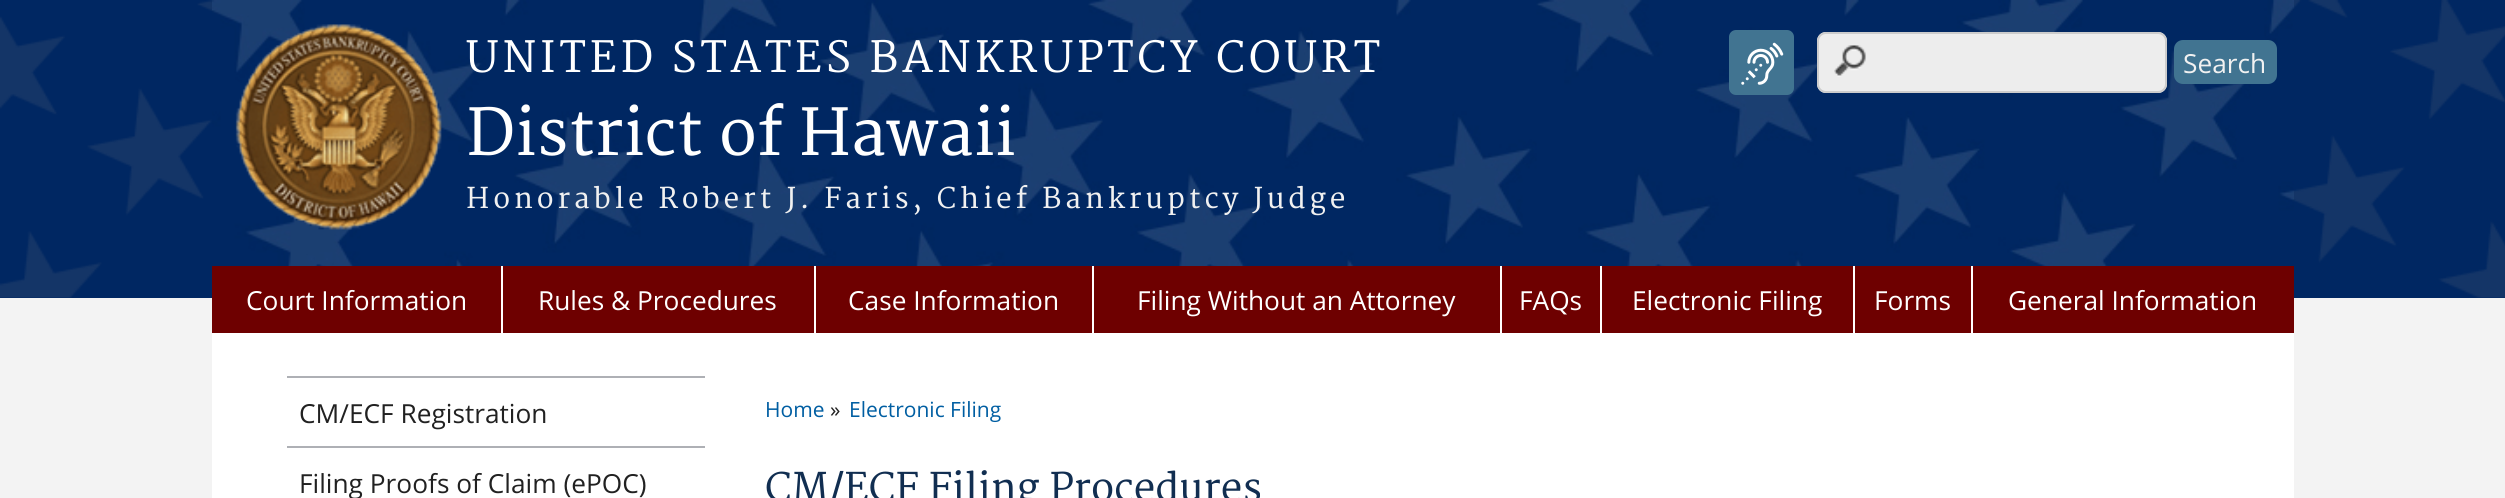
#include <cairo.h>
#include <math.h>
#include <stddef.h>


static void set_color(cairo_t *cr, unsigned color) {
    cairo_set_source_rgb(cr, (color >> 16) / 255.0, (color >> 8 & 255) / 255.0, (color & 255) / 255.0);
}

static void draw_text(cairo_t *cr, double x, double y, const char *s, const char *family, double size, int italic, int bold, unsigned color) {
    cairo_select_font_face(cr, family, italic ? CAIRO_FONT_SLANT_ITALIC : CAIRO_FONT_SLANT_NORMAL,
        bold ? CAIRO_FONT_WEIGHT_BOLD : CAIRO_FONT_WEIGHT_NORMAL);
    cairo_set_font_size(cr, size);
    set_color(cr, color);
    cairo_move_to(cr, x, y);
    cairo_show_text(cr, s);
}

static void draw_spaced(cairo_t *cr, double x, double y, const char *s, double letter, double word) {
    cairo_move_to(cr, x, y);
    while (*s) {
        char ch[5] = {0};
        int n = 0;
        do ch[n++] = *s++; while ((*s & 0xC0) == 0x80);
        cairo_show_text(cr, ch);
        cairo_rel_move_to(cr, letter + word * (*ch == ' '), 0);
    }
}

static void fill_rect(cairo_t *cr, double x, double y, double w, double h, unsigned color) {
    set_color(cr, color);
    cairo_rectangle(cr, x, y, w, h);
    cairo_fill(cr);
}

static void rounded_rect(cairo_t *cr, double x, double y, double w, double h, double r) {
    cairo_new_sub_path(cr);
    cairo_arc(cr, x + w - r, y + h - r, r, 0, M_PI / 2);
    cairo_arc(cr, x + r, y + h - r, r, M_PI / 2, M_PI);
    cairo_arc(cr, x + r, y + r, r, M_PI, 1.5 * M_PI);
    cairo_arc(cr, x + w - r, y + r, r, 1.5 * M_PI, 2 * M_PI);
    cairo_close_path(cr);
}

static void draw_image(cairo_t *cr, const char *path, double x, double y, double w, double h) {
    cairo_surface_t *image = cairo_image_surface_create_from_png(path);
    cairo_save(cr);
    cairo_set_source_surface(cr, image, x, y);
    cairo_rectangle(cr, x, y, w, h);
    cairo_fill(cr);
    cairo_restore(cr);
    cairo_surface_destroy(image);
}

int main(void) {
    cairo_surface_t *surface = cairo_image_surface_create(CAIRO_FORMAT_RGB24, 2505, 498);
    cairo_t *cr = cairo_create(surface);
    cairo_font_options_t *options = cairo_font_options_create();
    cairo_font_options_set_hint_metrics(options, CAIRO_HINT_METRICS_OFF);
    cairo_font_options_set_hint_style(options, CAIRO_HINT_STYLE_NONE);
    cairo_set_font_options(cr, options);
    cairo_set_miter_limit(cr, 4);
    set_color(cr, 0xF3F3F3);
    cairo_paint(cr);
    fill_rect(cr, 0, 0, 2505, 298, 0x002762);
    draw_image(cr, "assets/img1.png", 0, 0, 2505, 298);
    fill_rect(cr, 212, 333, 2082, 165, 0xFFFFFF);
    draw_image(cr, "assets/img2.png", 212, 0, 2082, 266);
    draw_image(cr, "assets/img3.png", 235, 24, 207, 206);
    cairo_select_font_face(cr, "Merriweather", CAIRO_FONT_SLANT_NORMAL, CAIRO_FONT_WEIGHT_NORMAL);
    cairo_set_font_size(cr, 42);
    draw_spaced(cr, 466, 72, "UNITED STATES BANKRUPTCY COURT", 3.85, 0);
    draw_text(cr, 466, 155, "District of Hawaii", "Merriweather", 63, 0, 0, 0xFFFFFF);
    cairo_set_font_size(cr, 28);
    set_color(cr, 0xF1F1F1);
    draw_spaced(cr, 466, 208, "Honorable Robert J. Faris, Chief Bankruptcy Judge", 3.85, 0);
    set_color(cr, 0x417491);
    rounded_rect(cr, 1729, 30, 65, 65, 7);
    cairo_fill(cr);
    draw_image(cr, "assets/img4.png", 1741, 42, 43, 43);
    set_color(cr, 0xEDEDED);
    rounded_rect(cr, 1817, 32, 350, 61, 9);
    cairo_fill(cr);
    draw_image(cr, "assets/img5.png", 1834, 45, 32, 32);
    rounded_rect(cr, 1818, 33, 348, 59, 8);
    set_color(cr, 0xCCCCCC);
    cairo_stroke(cr);
    set_color(cr, 0x417491);
    rounded_rect(cr, 2174, 40, 103, 44, 9);
    cairo_fill(cr);
    draw_text(cr, 2183, 73, "Search", "Open Sans", 26.25, 0, 0, 0xF1F1F1);
    fill_rect(cr, 212, 266, 2082, 67, 0x6E0000);
    fill_rect(cr, 501, 266, 2, 67, 0xFFFFFF);
    draw_text(cr, 246, 310, "Court Information", "Open Sans", 26.25, 0, 0, 0xFFFFFF);
    fill_rect(cr, 814, 266, 2, 67, 0xFFFFFF);
    draw_text(cr, 538, 310, "Rules & Procedures", "Open Sans", 26.25, 0, 0, 0xFFFFFF);
    fill_rect(cr, 1092, 266, 2, 67, 0xFFFFFF);
    draw_text(cr, 848, 310, "Case Information", "Open Sans", 26.25, 0, 0, 0xFFFFFF);
    fill_rect(cr, 1500, 266, 2, 67, 0xFFFFFF);
    draw_text(cr, 1137, 310, "Filing Without an Attorney", "Open Sans", 26.25, 0, 0, 0xFFFFFF);
    fill_rect(cr, 1600, 266, 2, 67, 0xFFFFFF);
    draw_text(cr, 1519, 310, "FAQs", "Open Sans", 26.25, 0, 0, 0xFFFFFF);
    fill_rect(cr, 1853, 266, 2, 67, 0xFFFFFF);
    draw_text(cr, 1632, 310, "Electronic Filing", "Open Sans", 26.25, 0, 0, 0xFFFFFF);
    fill_rect(cr, 1971, 266, 2, 67, 0xFFFFFF);
    draw_text(cr, 1874, 310, "Forms", "Open Sans", 26.25, 0, 0, 0xFFFFFF);
    draw_text(cr, 2008, 310, "General Information", "Open Sans", 26.25, 0, 0, 0xFFFFFF);
    fill_rect(cr, 287, 376, 418, 2, 0xAEB0B5);
    draw_text(cr, 299, 423, "CM/ECF Registration", "Open Sans", 26.25, 0, 0, 0x212121);
    fill_rect(cr, 287, 446, 418, 2, 0xAEB0B5);
    draw_text(cr, 299, 493, "Filing Proofs of Claim (ePOC)", "Open Sans", 26.25, 0, 0, 0x212121);
    draw_text(cr, 765, 417, "Home", "Open Sans", 21, 0, 0, 0x005EA2);
    draw_text(cr, 830, 417, "»", "Open Sans", 21, 0, 0, 0x212121);
    draw_text(cr, 849, 417, "Electronic Filing", "Open Sans", 21, 0, 0, 0x005EA2);
    draw_text(cr, 765, 501, "CM/ECF Filing Procedures", "Merriweather", 38.5, 0, 0, 0x112E51);
    cairo_surface_write_to_png(surface, "output.png");
    cairo_font_options_destroy(options);
    cairo_destroy(cr);
    cairo_surface_destroy(surface);
    return 0;
}
